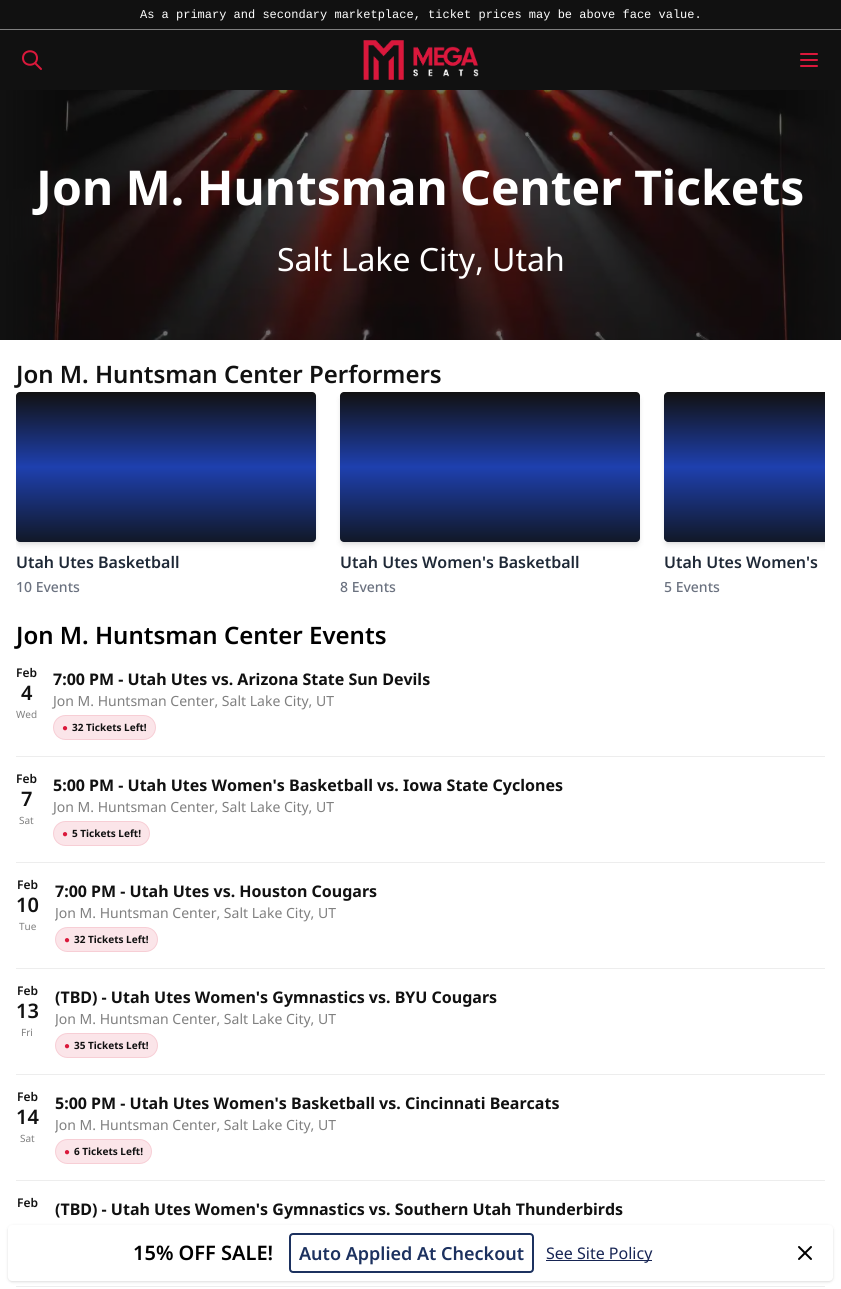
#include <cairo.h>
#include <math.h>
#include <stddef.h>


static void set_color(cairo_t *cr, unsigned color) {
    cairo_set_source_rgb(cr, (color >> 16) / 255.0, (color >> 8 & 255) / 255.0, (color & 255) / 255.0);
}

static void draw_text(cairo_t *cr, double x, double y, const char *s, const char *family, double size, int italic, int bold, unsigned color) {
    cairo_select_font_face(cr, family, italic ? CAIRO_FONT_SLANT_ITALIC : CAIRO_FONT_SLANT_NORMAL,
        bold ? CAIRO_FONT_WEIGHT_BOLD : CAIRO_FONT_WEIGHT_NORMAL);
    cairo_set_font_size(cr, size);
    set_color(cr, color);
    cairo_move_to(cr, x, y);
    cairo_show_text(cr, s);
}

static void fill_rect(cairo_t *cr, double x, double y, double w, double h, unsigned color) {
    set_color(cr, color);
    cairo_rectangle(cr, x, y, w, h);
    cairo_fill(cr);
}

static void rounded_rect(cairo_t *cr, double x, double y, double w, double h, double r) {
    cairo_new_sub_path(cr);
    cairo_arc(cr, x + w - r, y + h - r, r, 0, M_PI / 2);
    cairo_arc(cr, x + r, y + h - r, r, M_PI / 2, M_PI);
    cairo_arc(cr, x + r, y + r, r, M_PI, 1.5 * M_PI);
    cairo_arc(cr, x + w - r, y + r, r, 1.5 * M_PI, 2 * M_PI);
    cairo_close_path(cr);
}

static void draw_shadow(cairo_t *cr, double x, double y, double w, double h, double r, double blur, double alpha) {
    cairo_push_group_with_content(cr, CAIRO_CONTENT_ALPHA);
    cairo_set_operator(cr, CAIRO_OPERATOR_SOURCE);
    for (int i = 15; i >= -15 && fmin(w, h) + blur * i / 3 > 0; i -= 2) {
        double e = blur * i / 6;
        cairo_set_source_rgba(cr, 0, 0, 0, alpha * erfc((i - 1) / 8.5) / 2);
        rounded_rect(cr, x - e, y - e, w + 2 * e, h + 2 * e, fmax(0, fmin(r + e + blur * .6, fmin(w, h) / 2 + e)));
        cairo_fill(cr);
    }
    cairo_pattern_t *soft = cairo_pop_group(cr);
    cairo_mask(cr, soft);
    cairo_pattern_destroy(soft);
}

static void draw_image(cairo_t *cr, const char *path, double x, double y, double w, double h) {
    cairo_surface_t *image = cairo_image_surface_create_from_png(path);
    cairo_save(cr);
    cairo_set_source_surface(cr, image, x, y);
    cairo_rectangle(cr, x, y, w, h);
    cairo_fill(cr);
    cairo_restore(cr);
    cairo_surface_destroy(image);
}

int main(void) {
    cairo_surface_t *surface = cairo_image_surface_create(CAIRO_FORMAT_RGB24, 841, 1289);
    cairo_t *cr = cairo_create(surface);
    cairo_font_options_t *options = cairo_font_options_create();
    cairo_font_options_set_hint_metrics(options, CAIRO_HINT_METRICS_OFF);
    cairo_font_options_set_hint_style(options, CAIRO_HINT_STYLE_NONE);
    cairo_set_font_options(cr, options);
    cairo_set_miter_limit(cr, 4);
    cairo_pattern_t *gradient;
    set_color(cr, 0xFFFFFF);
    cairo_paint(cr);
    fill_rect(cr, 0, 0, 841, 29, 0x111111);
    fill_rect(cr, 0, 29, 841, 1, 0x808080);
    draw_text(cr, 140, 18, "As a primary and secondary marketplace, ticket prices may be above face value.", "Liberation Mono", 12, 0, 0, 0xFFFFFF);
    fill_rect(cr, 0, 30, 841, 60, 0x111111);
    cairo_new_path(cr);
    cairo_move_to(cr, 41, 69);
    cairo_line_to(cr, 35, 63);
    cairo_move_to(cr, 37, 58);
    cairo_curve_to(cr, 37, 67, 23, 67, 23, 58);
    cairo_curve_to(cr, 23, 49, 37, 49, 37, 58);
    cairo_close_path(cr);
    set_color(cr, 0xDA183B);
    cairo_set_line_cap(cr, CAIRO_LINE_CAP_ROUND);
    cairo_set_line_join(cr, CAIRO_LINE_JOIN_ROUND);
    cairo_stroke(cr);
    draw_image(cr, "assets/img1.png", 363, 40, 116, 40);
    cairo_new_path(cr);
    cairo_move_to(cr, 801, 54);
    cairo_line_to(cr, 817, 54);
    cairo_move_to(cr, 801, 60);
    cairo_line_to(cr, 817, 60);
    cairo_move_to(cr, 801, 66);
    cairo_line_to(cr, 817, 66);
    cairo_stroke(cr);
    draw_image(cr, "assets/img2.png", 0, 90, 841, 250);
    draw_text(cr, 36, 205, "Jon M. Huntsman Center Tickets", "Noto Sans", 48, 0, 1, 0xFFFFFF);
    draw_text(cr, 277, 271, "Salt Lake City, Utah", "Noto Sans", 32, 0, 0, 0xFFFFFF);
    draw_text(cr, 16, 383, "Jon M. Huntsman Center Performers", "Noto Sans SemiBold", 24, 0, 0, 0x111111);
    set_color(cr, 0x000000);
    draw_shadow(cr, 18, 396, 296, 146, 2, 2, 0.1);
    cairo_save(cr);
    cairo_rectangle(cr, 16, 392, 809, 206);
    cairo_clip(cr);
    draw_shadow(cr, 17, 397, 298, 148, 3, 3, 0.1);
    cairo_restore(cr);
    gradient = cairo_pattern_create_linear(166, 392, 166, 542);
    cairo_pattern_add_color_stop_rgba(gradient, 0, 0.067, 0.067, 0.067, 1);
    cairo_pattern_add_color_stop_rgba(gradient, 0.5, 0.118, 0.251, 0.686, 1);
    cairo_pattern_add_color_stop_rgba(gradient, 1, 0.067, 0.094, 0.153, 1);
    cairo_set_source(cr, gradient);
    cairo_pattern_destroy(gradient);
    rounded_rect(cr, 16, 392, 300, 150, 4);
    cairo_fill(cr);
    draw_text(cr, 16, 568, "Utah Utes Basketball", "Noto Sans SemiBold", 16, 0, 0, 0x1F2937);
    draw_text(cr, 16, 592, "10 Events", "Noto Sans Medium", 14, 0, 0, 0x6B7280);
    set_color(cr, 0x000000);
    draw_shadow(cr, 342, 396, 296, 146, 2, 2, 0.1);
    draw_shadow(cr, 341, 397, 298, 148, 3, 3, 0.1);
    gradient = cairo_pattern_create_linear(490, 392, 490, 542);
    cairo_pattern_add_color_stop_rgba(gradient, 0, 0.067, 0.067, 0.067, 1);
    cairo_pattern_add_color_stop_rgba(gradient, 0.5, 0.118, 0.251, 0.686, 1);
    cairo_pattern_add_color_stop_rgba(gradient, 1, 0.067, 0.094, 0.153, 1);
    cairo_set_source(cr, gradient);
    cairo_pattern_destroy(gradient);
    rounded_rect(cr, 340, 392, 300, 150, 4);
    cairo_fill(cr);
    draw_text(cr, 340, 568, "Utah Utes Women's Basketball", "Noto Sans SemiBold", 16, 0, 0, 0x1F2937);
    draw_text(cr, 340, 592, "8 Events", "Noto Sans Medium", 14, 0, 0, 0x6B7280);
    cairo_save(cr);
    cairo_rectangle(cr, 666, 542, 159, 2);
    cairo_clip(cr);
    set_color(cr, 0x000000);
    draw_shadow(cr, 666, 396, 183, 146, 2, 2, 0.1);
    cairo_restore(cr);
    cairo_save(cr);
    cairo_rectangle(cr, 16, 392, 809, 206);
    cairo_clip(cr);
    set_color(cr, 0x000000);
    draw_shadow(cr, 665, 397, 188, 148, 3, 3, 0.1);
    cairo_restore(cr);
    gradient = cairo_pattern_create_linear(814, 392, 814, 542);
    cairo_pattern_add_color_stop_rgba(gradient, 0, 0.067, 0.067, 0.067, 1);
    cairo_pattern_add_color_stop_rgba(gradient, 0.5, 0.118, 0.251, 0.686, 1);
    cairo_pattern_add_color_stop_rgba(gradient, 1, 0.067, 0.094, 0.153, 1);
    cairo_set_source(cr, gradient);
    cairo_pattern_destroy(gradient);
    cairo_new_path(cr);
    cairo_move_to(cr, 668, 392);
    cairo_line_to(cr, 825, 392);
    cairo_line_to(cr, 825, 542);
    cairo_line_to(cr, 668, 542);
    cairo_curve_to(cr, 666, 542, 664, 540, 664, 538);
    cairo_line_to(cr, 664, 396);
    cairo_curve_to(cr, 664, 394, 666, 392, 668, 392);
    cairo_close_path(cr);
    cairo_fill(cr);
    draw_text(cr, 664, 568, "Utah Utes Women's", "Noto Sans SemiBold", 16, 0, 0, 0x1F2937);
    draw_text(cr, 664, 592, "5 Events", "Noto Sans Medium", 14, 0, 0, 0x6B7280);
    draw_text(cr, 16, 644, "Jon M. Huntsman Center Events", "Noto Sans SemiBold", 24, 0, 0, 0x000000);
    fill_rect(cr, 16, 756, 809, 1, 0xEDEDED);
    draw_text(cr, 16, 677, "Feb", "Noto Sans SemiBold", 12, 0, 0, 0x111111);
    draw_text(cr, 21, 700, "4", "Noto Sans SemiBold", 20, 0, 0, 0x111111);
    draw_text(cr, 16, 718, "Wed", "Noto Sans", 10, 0, 0, 0x808080);
    draw_text(cr, 53, 685, "7:00 PM - Utah Utes vs. Arizona State Sun Devils", "Noto Sans", 16, 0, 1, 0x111111);
    draw_text(cr, 53, 706, "Jon M. Huntsman Center, Salt Lake City, UT", "Noto Sans", 14, 0, 0, 0x808080);
    set_color(cr, 0xFBE5E9);
    rounded_rect(cr, 53, 715, 103, 25, 12.5);
    cairo_fill(cr);
    rounded_rect(cr, 53.5, 715.5, 102, 24, 12);
    cairo_set_source_rgba(cr, 0.855, 0.094, 0.231, 0.11);
    cairo_set_line_width(cr, 1);
    cairo_set_line_cap(cr, CAIRO_LINE_CAP_BUTT);
    cairo_set_line_join(cr, CAIRO_LINE_JOIN_MITER);
    cairo_stroke(cr);
    draw_text(cr, 62, 731, "●", "Liberation Sans", 10, 0, 1, 0xDA183B);
    draw_text(cr, 72, 731, "32 Tickets Left!", "Noto Sans", 10, 0, 1, 0x111111);
    fill_rect(cr, 16, 862, 809, 1, 0xEDEDED);
    draw_text(cr, 16, 783, "Feb", "Noto Sans SemiBold", 12, 0, 0, 0x111111);
    draw_text(cr, 21, 806, "7", "Noto Sans SemiBold", 20, 0, 0, 0x111111);
    draw_text(cr, 19, 824, "Sat", "Noto Sans", 10, 0, 0, 0x808080);
    draw_text(cr, 53, 791, "5:00 PM - Utah Utes Women's Basketball vs. Iowa State Cyclones", "Noto Sans", 16, 0, 1, 0x111111);
    draw_text(cr, 53, 812, "Jon M. Huntsman Center, Salt Lake City, UT", "Noto Sans", 14, 0, 0, 0x808080);
    set_color(cr, 0xFBE5E9);
    rounded_rect(cr, 53, 821, 97, 25, 12.5);
    cairo_fill(cr);
    rounded_rect(cr, 53.5, 821.5, 96, 24, 12);
    cairo_set_source_rgba(cr, 0.855, 0.094, 0.231, 0.11);
    cairo_stroke(cr);
    draw_text(cr, 62, 837, "●", "Liberation Sans", 10, 0, 1, 0xDA183B);
    draw_text(cr, 72, 837, "5 Tickets Left!", "Noto Sans", 10, 0, 1, 0x111111);
    fill_rect(cr, 16, 968, 809, 1, 0xEDEDED);
    draw_text(cr, 17, 889, "Feb", "Noto Sans SemiBold", 12, 0, 0, 0x111111);
    draw_text(cr, 16, 912, "10", "Noto Sans SemiBold", 20, 0, 0, 0x111111);
    draw_text(cr, 19, 930, "Tue", "Noto Sans", 10, 0, 0, 0x808080);
    draw_text(cr, 55, 897, "7:00 PM - Utah Utes vs. Houston Cougars", "Noto Sans", 16, 0, 1, 0x111111);
    cairo_save(cr);
    cairo_rectangle(cr, 55, 903, 322, 20);
    cairo_clip(cr);
    draw_text(cr, 55, 918, "Jon M. Huntsman Center, Salt Lake City, UT", "Noto Sans", 14, 0, 0, 0x808080);
    cairo_restore(cr);
    set_color(cr, 0xFBE5E9);
    rounded_rect(cr, 55, 927, 103, 25, 12.5);
    cairo_fill(cr);
    rounded_rect(cr, 55.5, 927.5, 102, 24, 12);
    cairo_set_source_rgba(cr, 0.855, 0.094, 0.231, 0.11);
    cairo_stroke(cr);
    draw_text(cr, 64, 943, "●", "Liberation Sans", 10, 0, 1, 0xDA183B);
    draw_text(cr, 74, 943, "32 Tickets Left!", "Noto Sans", 10, 0, 1, 0x111111);
    fill_rect(cr, 16, 1074, 809, 1, 0xEDEDED);
    draw_text(cr, 17, 995, "Feb", "Noto Sans SemiBold", 12, 0, 0, 0x111111);
    draw_text(cr, 16, 1018, "13", "Noto Sans SemiBold", 20, 0, 0, 0x111111);
    draw_text(cr, 21, 1036, "Fri", "Noto Sans", 10, 0, 0, 0x808080);
    draw_text(cr, 55, 1003, "(TBD) - Utah Utes Women's Gymnastics vs. BYU Cougars", "Noto Sans", 16, 0, 1, 0x111111);
    cairo_save(cr);
    cairo_rectangle(cr, 55, 1009, 442, 20);
    cairo_clip(cr);
    draw_text(cr, 55, 1024, "Jon M. Huntsman Center, Salt Lake City, UT", "Noto Sans", 14, 0, 0, 0x808080);
    cairo_restore(cr);
    set_color(cr, 0xFBE5E9);
    rounded_rect(cr, 55, 1033, 103, 25, 12.5);
    cairo_fill(cr);
    rounded_rect(cr, 55.5, 1033.5, 102, 24, 12);
    cairo_set_source_rgba(cr, 0.855, 0.094, 0.231, 0.11);
    cairo_stroke(cr);
    draw_text(cr, 64, 1049, "●", "Liberation Sans", 10, 0, 1, 0xDA183B);
    draw_text(cr, 74, 1049, "35 Tickets Left!", "Noto Sans", 10, 0, 1, 0x111111);
    fill_rect(cr, 16, 1180, 809, 1, 0xEDEDED);
    draw_text(cr, 17, 1101, "Feb", "Noto Sans SemiBold", 12, 0, 0, 0x111111);
    draw_text(cr, 16, 1124, "14", "Noto Sans SemiBold", 20, 0, 0, 0x111111);
    draw_text(cr, 20, 1142, "Sat", "Noto Sans", 10, 0, 0, 0x808080);
    draw_text(cr, 55, 1109, "5:00 PM - Utah Utes Women's Basketball vs. Cincinnati Bearcats", "Noto Sans", 16, 0, 1, 0x111111);
    cairo_save(cr);
    cairo_rectangle(cr, 55, 1115, 504, 20);
    cairo_clip(cr);
    draw_text(cr, 55, 1130, "Jon M. Huntsman Center, Salt Lake City, UT", "Noto Sans", 14, 0, 0, 0x808080);
    cairo_restore(cr);
    set_color(cr, 0xFBE5E9);
    rounded_rect(cr, 55, 1139, 97, 25, 12.5);
    cairo_fill(cr);
    rounded_rect(cr, 55.5, 1139.5, 96, 24, 12);
    cairo_set_source_rgba(cr, 0.855, 0.094, 0.231, 0.11);
    cairo_stroke(cr);
    draw_text(cr, 64, 1155, "●", "Liberation Sans", 10, 0, 1, 0xDA183B);
    draw_text(cr, 74, 1155, "6 Tickets Left!", "Noto Sans", 10, 0, 1, 0x111111);
    fill_rect(cr, 16, 1286, 809, 1, 0xEDEDED);
    draw_text(cr, 17, 1207, "Feb", "Noto Sans SemiBold", 12, 0, 0, 0x111111);
    draw_text(cr, 55, 1215, "(TBD) - Utah Utes Women's Gymnastics vs. Southern Utah Thunderbirds", "Noto Sans", 16, 0, 1, 0x111111);
    set_color(cr, 0x000000);
    draw_shadow(cr, 9, 1227, 823, 54, 3, 1, 0.1);
    draw_shadow(cr, 8, 1226, 825, 56, 4, 1.5, 0.1);
    set_color(cr, 0xFFFFFF);
    rounded_rect(cr, 8, 1225, 825, 56, 4);
    cairo_fill(cr);
    draw_text(cr, 133, 1260, "15% OFF SALE!", "Noto Sans SemiBold", 20, 0, 0, 0x000000);
    rounded_rect(cr, 290, 1234, 243, 38, 3);
    set_color(cr, 0x1C315F);
    cairo_set_line_width(cr, 2);
    cairo_stroke(cr);
    draw_text(cr, 299, 1260, "Auto Applied At Checkout", "Noto Sans SemiBold", 18, 0, 0, 0x1C315F);
    fill_rect(cr, 546, 1260, 106, 1, 0x172554);
    draw_text(cr, 546, 1259, "See Site Policy", "Noto Sans", 16, 0, 0, 0x172554);
    cairo_new_path(cr);
    cairo_move_to(cr, 799, 1259);
    cairo_line_to(cr, 811, 1247);
    cairo_move_to(cr, 799, 1247);
    cairo_line_to(cr, 811, 1259);
    set_color(cr, 0x000000);
    cairo_set_line_cap(cr, CAIRO_LINE_CAP_ROUND);
    cairo_set_line_join(cr, CAIRO_LINE_JOIN_ROUND);
    cairo_stroke(cr);
    cairo_surface_write_to_png(surface, "output.png");
    cairo_font_options_destroy(options);
    cairo_destroy(cr);
    cairo_surface_destroy(surface);
    return 0;
}
